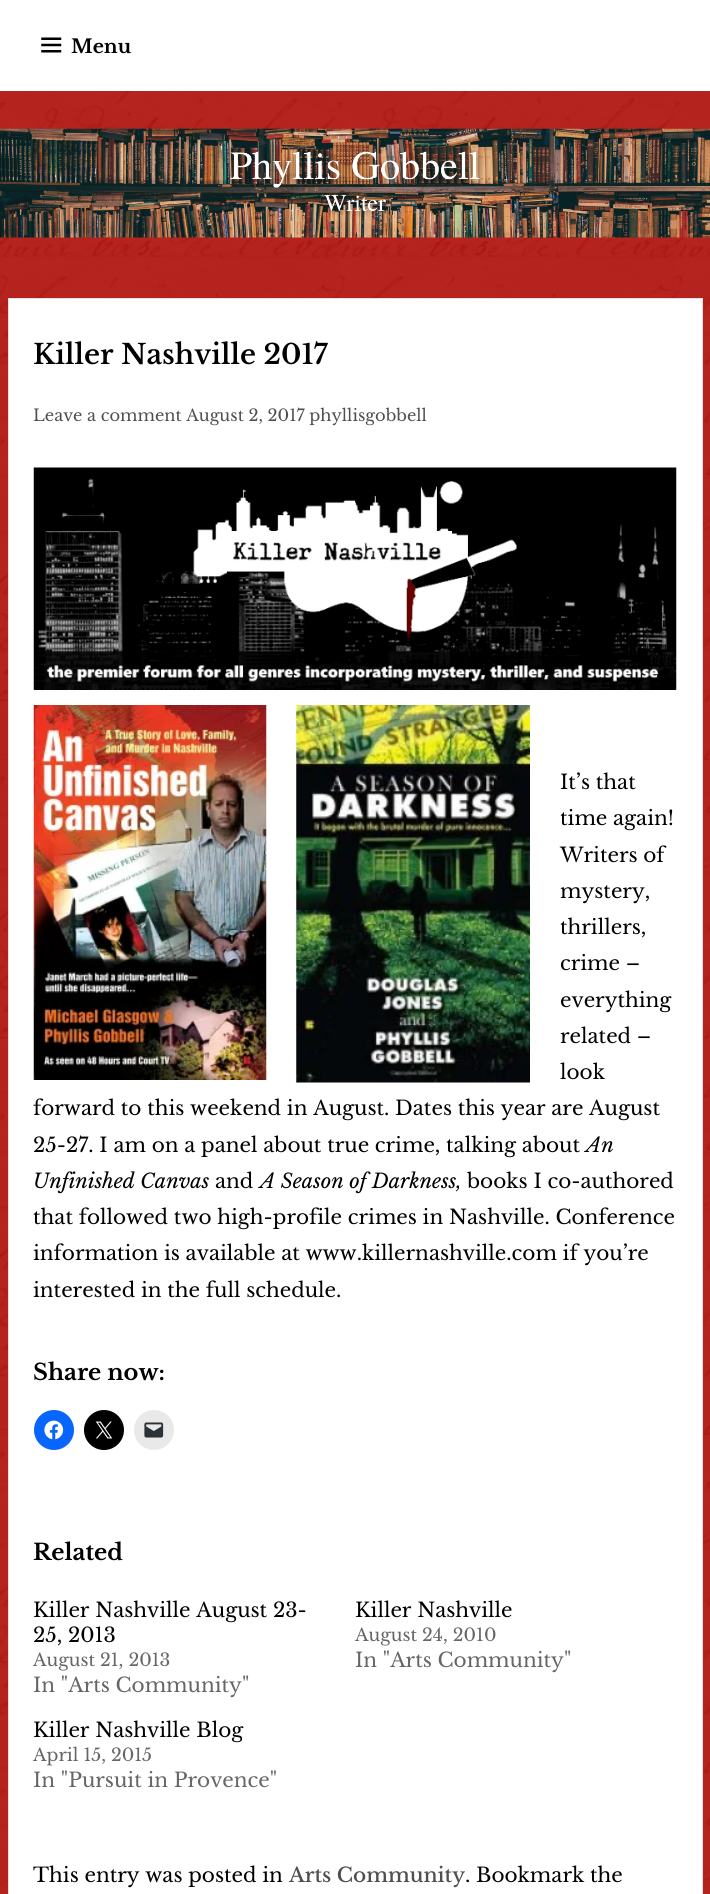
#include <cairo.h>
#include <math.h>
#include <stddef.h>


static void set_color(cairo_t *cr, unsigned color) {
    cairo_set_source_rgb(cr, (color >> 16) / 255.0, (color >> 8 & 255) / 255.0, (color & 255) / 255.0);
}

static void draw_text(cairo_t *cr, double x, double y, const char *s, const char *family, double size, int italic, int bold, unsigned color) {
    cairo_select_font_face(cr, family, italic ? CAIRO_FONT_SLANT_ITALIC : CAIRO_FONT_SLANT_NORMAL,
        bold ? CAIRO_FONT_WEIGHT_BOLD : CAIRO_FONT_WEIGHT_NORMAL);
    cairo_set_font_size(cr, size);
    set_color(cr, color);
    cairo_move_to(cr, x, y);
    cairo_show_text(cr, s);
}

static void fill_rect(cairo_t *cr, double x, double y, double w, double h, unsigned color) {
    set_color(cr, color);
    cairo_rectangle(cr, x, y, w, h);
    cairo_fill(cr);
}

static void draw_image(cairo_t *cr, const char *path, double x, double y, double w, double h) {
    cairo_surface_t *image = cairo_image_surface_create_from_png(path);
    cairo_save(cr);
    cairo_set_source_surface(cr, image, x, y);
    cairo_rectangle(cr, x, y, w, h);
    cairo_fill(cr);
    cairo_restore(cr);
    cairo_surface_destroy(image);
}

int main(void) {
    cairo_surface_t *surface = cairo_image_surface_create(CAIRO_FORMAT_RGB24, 710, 1894);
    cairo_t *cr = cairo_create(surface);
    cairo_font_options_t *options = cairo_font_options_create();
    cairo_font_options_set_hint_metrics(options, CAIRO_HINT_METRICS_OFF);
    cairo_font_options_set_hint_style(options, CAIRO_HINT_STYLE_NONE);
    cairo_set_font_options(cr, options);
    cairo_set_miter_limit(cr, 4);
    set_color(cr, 0xAF0A05);
    cairo_paint(cr);
    draw_image(cr, "assets/img1.png", 0, 91, 710, 1803);
    fill_rect(cr, 0, 0, 710, 91, 0xFFFFFF);
    draw_image(cr, "assets/img2.png", 41, 37, 21, 16);
    draw_text(cr, 71, 53, "Menu", "Libre Baskerville", 19, 0, 1, 0x000000);
    draw_image(cr, "assets/img3.png", 0, 128, 710, 110);
    set_color(cr, 0xFFFFFF);
    cairo_rectangle(cr, 8.5, 298.5, 694, 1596);
    cairo_fill_preserve(cr);
    set_color(cr, 0xE0E0E0);
    cairo_set_line_width(cr, 1);
    cairo_stroke(cr);
    draw_text(cr, 33, 364, "Killer Nashville 2017", "Libre Baskerville SemiBold", 27.5, 0, 0, 0x000000);
    draw_text(cr, 33, 421, "Leave a comment August 2, 2017 phyllisgobbell", "Libre Baskerville", 16.25, 0, 0, 0x4F4F4F);
    draw_image(cr, "assets/img4.png", 33, 467, 644, 223);
    draw_image(cr, "assets/img5.png", 33, 705, 234, 375);
    draw_image(cr, "assets/img6.png", 296, 705, 234, 378);
    draw_text(cr, 560, 789, "It’s that", "Libre Baskerville", 20, 0, 0, 0x000000);
    draw_text(cr, 560, 825, "time again!", "Libre Baskerville", 20, 0, 0, 0x000000);
    draw_text(cr, 560, 862, "Writers of", "Libre Baskerville", 20, 0, 0, 0x000000);
    draw_text(cr, 560, 898, "mystery,", "Libre Baskerville", 20, 0, 0, 0x000000);
    draw_text(cr, 560, 934, "thrillers,", "Libre Baskerville", 20, 0, 0, 0x000000);
    draw_text(cr, 560, 970, "crime –", "Libre Baskerville", 20, 0, 0, 0x000000);
    draw_text(cr, 560, 1007, "everything", "Libre Baskerville", 20, 0, 0, 0x000000);
    draw_text(cr, 560, 1043, "related –", "Libre Baskerville", 20, 0, 0, 0x000000);
    draw_text(cr, 560, 1079, "look", "Libre Baskerville", 20, 0, 0, 0x000000);
    draw_text(cr, 33, 1115, "forward to this weekend in August. Dates this year are August", "Libre Baskerville", 20, 0, 0, 0x000000);
    draw_text(cr, 33, 1152, "25-27. I am on a panel about true crime, talking about", "Libre Baskerville", 20, 0, 0, 0x000000);
    draw_text(cr, 586, 1152, "An", "Libre Baskerville", 20, 1, 0, 0x000000);
    draw_text(cr, 33, 1188, "Unfinished Canvas", "Libre Baskerville", 20, 1, 0, 0x000000);
    draw_text(cr, 215, 1188, "and", "Libre Baskerville", 20, 0, 0, 0x000000);
    draw_text(cr, 260, 1188, "A Season of Darkness,", "Libre Baskerville", 20, 1, 0, 0x000000);
    draw_text(cr, 467, 1188, "books I co-authored", "Libre Baskerville", 20, 0, 0, 0x000000);
    draw_text(cr, 33, 1224, "that followed two high-profile crimes in Nashville. Conference", "Libre Baskerville", 20, 0, 0, 0x000000);
    draw_text(cr, 33, 1260, "information is available at www.killernashville.com if you’re", "Libre Baskerville", 20, 0, 0, 0x000000);
    draw_text(cr, 33, 1297, "interested in the full schedule.", "Libre Baskerville", 20, 0, 0, 0x000000);
    draw_text(cr, 33, 1380, "Share now:", "Libre Baskerville", 22.5, 0, 1, 0x000000);
    set_color(cr, 0x0866FF);
    cairo_new_path(cr);
    cairo_arc(cr, 54, 1430, 20, 0, 2 * M_PI);
    cairo_fill(cr);
    draw_image(cr, "assets/img7.png", 44, 1420, 20, 20);
    set_color(cr, 0x000000);
    cairo_arc(cr, 104, 1430, 20, 0, 2 * M_PI);
    cairo_fill(cr);
    draw_image(cr, "assets/img8.png", 95, 1421, 18, 18);
    set_color(cr, 0xE9E9E9);
    cairo_arc(cr, 154, 1430, 20, 0, 2 * M_PI);
    cairo_fill(cr);
    draw_image(cr, "assets/img9.png", 144, 1422, 20, 16);
    draw_text(cr, 33, 1560, "Related", "Libre Baskerville", 22.5, 0, 1, 0x000000);
    draw_text(cr, 33, 1617, "Killer Nashville August 23-", "Libre Baskerville", 20, 0, 0, 0x000000);
    draw_text(cr, 33, 1642, "25, 2013", "Libre Baskerville", 20, 0, 0, 0x000000);
    draw_text(cr, 33, 1666, "August 21, 2013", "Libre Baskerville", 17.5, 0, 0, 0x666666);
    draw_text(cr, 33, 1692, "In \"Arts Community\"", "Libre Baskerville", 20, 0, 0, 0x666666);
    draw_text(cr, 355, 1617, "Killer Nashville", "Libre Baskerville", 20, 0, 0, 0x000000);
    draw_text(cr, 355, 1641, "August 24, 2010", "Libre Baskerville", 17.5, 0, 0, 0x666666);
    draw_text(cr, 355, 1667, "In \"Arts Community\"", "Libre Baskerville", 20, 0, 0, 0x666666);
    draw_text(cr, 33, 1737, "Killer Nashville Blog", "Libre Baskerville", 20, 0, 0, 0x000000);
    draw_text(cr, 33, 1761, "April 15, 2015", "Libre Baskerville", 17.5, 0, 0, 0x666666);
    draw_text(cr, 33, 1787, "In \"Pursuit in Provence\"", "Libre Baskerville", 20, 0, 0, 0x666666);
    draw_text(cr, 33, 1882, "This entry was posted in", "Libre Baskerville", 20, 0, 0, 0x000000);
    draw_text(cr, 289, 1882, "Arts Community", "Libre Baskerville Medium", 20, 0, 0, 0x4F4F4F);
    draw_text(cr, 465, 1882, ". Bookmark the", "Libre Baskerville", 20, 0, 0, 0x000000);
    cairo_surface_write_to_png(surface, "output.png");
    cairo_font_options_destroy(options);
    cairo_destroy(cr);
    cairo_surface_destroy(surface);
    return 0;
}
